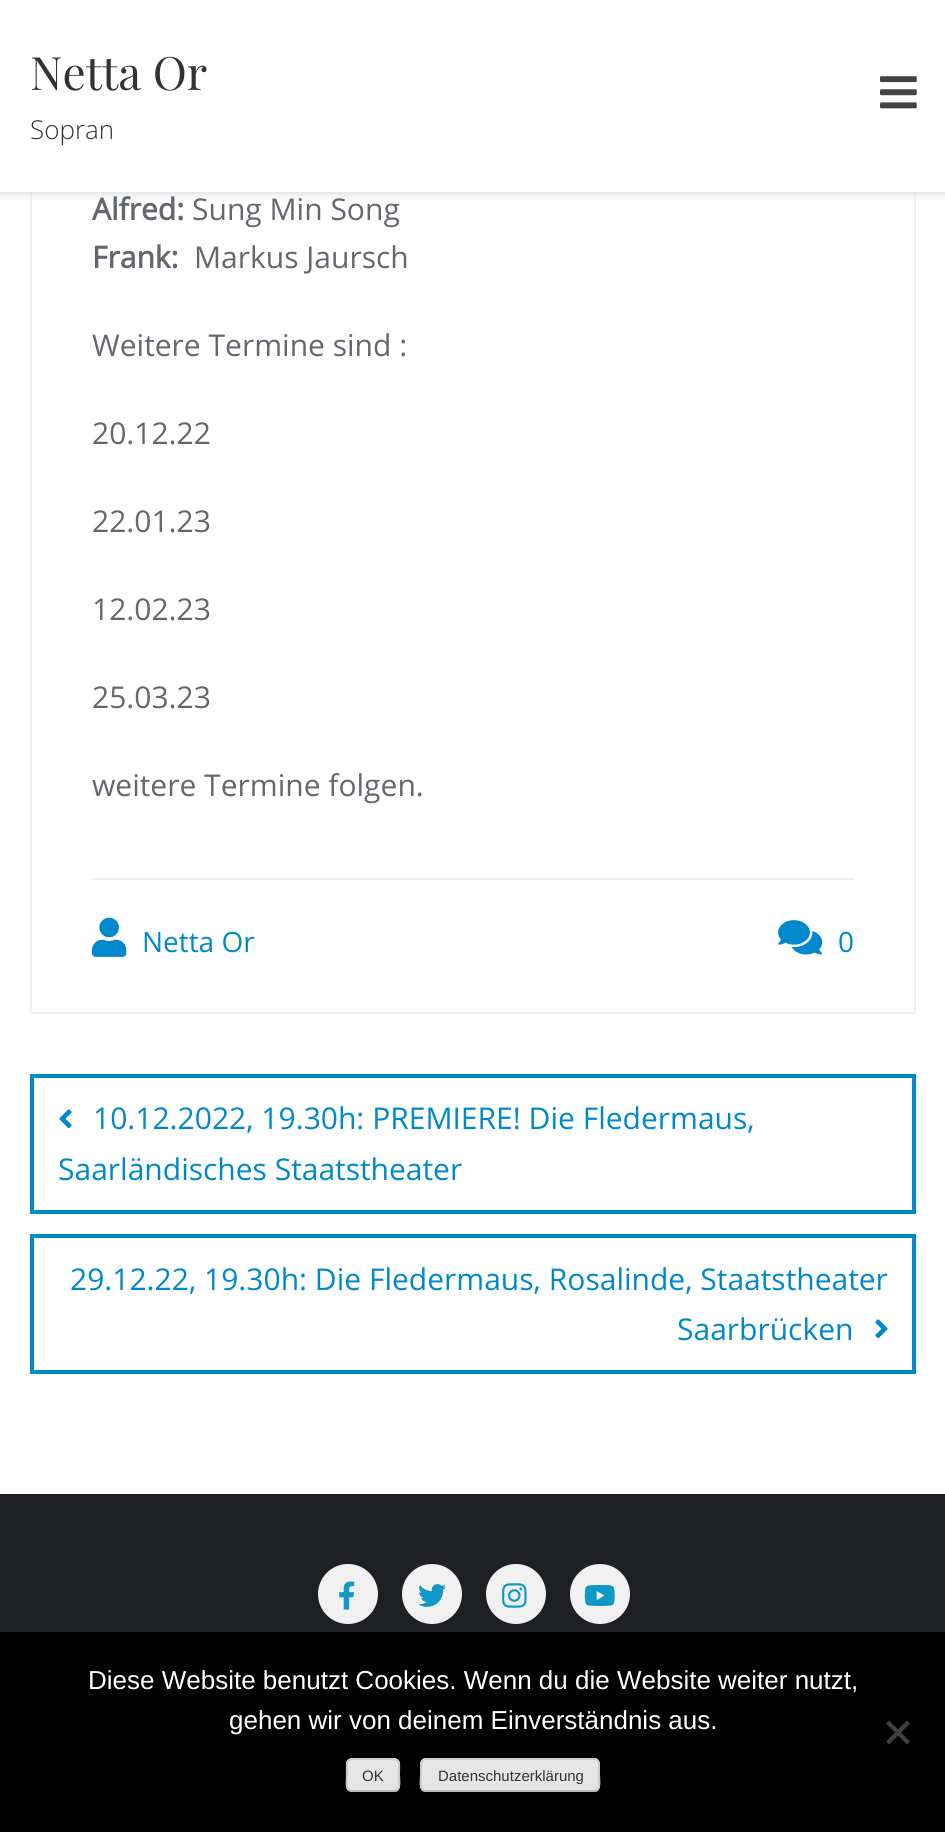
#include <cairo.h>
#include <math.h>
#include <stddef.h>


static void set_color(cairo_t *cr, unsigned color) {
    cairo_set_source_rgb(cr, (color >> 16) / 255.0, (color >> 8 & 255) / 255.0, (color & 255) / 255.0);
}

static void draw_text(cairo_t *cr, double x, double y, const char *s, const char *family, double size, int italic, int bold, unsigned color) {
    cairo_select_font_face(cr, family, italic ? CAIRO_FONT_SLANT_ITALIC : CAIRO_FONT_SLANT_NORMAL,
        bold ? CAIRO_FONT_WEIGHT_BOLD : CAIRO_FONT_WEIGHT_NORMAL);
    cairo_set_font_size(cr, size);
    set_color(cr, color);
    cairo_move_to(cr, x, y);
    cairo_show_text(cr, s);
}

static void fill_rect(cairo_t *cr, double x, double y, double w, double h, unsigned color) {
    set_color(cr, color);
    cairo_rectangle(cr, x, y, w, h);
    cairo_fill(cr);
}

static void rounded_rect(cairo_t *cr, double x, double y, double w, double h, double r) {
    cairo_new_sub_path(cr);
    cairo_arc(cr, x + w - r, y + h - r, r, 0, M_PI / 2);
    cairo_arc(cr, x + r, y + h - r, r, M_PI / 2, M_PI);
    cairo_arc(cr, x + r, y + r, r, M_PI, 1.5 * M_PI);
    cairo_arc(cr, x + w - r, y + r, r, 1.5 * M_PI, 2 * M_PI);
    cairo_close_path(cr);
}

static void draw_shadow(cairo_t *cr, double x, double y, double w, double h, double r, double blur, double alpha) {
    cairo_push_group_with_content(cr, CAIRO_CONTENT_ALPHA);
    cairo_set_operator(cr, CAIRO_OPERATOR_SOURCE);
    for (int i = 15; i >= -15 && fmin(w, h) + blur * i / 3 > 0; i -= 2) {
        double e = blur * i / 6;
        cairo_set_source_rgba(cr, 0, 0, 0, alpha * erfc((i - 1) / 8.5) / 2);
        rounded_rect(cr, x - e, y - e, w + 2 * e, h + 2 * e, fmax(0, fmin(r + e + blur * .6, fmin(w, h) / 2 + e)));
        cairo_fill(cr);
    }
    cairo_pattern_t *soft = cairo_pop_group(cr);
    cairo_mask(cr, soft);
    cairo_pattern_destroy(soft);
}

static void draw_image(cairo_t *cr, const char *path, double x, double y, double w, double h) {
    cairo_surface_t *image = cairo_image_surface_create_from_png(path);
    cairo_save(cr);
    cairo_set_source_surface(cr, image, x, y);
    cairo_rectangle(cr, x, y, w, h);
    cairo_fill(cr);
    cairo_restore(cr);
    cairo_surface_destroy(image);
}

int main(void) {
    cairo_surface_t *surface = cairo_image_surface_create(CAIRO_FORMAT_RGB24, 945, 1832);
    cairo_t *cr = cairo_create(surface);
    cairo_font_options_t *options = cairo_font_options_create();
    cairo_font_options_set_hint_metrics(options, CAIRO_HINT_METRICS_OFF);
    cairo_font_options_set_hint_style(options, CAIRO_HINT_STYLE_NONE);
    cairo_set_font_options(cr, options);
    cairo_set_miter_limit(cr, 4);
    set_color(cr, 0xFFFFFF);
    cairo_paint(cr);
    cairo_rectangle(cr, 31, -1, 884, 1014);
    set_color(cr, 0xF1F1F1);
    cairo_stroke(cr);
    set_color(cr, 0xCCCCCC);
    draw_shadow(cr, 0, 0, 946, 192, 0, 5, 1);
    fill_rect(cr, 0, 0, 945, 192, 0xFFFFFF);
    draw_text(cr, 30, 90, "Netta Or", "Playfair Display", 46, 0, 0, 0x333333);
    draw_text(cr, 30, 139, "Sopran", "Open Sans Light", 26, 0, 0, 0x333333);
    draw_image(cr, "assets/img1.png", 880, 76, 37, 33);
    draw_text(cr, 92, 220, "Alfred:", "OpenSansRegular", 30, 0, 1, 0x64686D);
    draw_text(cr, 192, 220, "Sung Min Song", "OpenSansRegular", 30, 0, 0, 0x64686D);
    draw_text(cr, 92, 268, "Frank:", "OpenSansRegular", 30, 0, 1, 0x64686D);
    draw_text(cr, 194, 268, "Markus Jaursch", "OpenSansRegular", 30, 0, 0, 0x64686D);
    draw_text(cr, 92, 356, "Weitere Termine sind :", "OpenSansRegular", 30, 0, 0, 0x64686D);
    draw_text(cr, 92, 444, "20.12.22", "OpenSansRegular", 30, 0, 0, 0x64686D);
    draw_text(cr, 92, 532, "22.01.23", "OpenSansRegular", 30, 0, 0, 0x64686D);
    draw_text(cr, 92, 620, "12.02.23", "OpenSansRegular", 30, 0, 0, 0x64686D);
    draw_text(cr, 92, 708, "25.03.23", "OpenSansRegular", 30, 0, 0, 0x64686D);
    draw_text(cr, 92, 796, "weitere Termine folgen.", "OpenSansRegular", 30, 0, 0, 0x64686D);
    fill_rect(cr, 92, 878, 762, 2, 0xF1F1F1);
    draw_image(cr, "assets/img2.png", 92, 917, 35, 40);
    draw_text(cr, 142, 952, "Netta Or", "OpenSansRegular", 28, 0, 0, 0x0088CC);
    draw_image(cr, "assets/img3.png", 778, 920, 45, 35);
    draw_text(cr, 838, 952, "0", "OpenSansRegular", 28, 0, 0, 0x0088CC);
    cairo_rectangle(cr, 32, 1076, 882, 136);
    cairo_set_line_width(cr, 4);
    cairo_stroke(cr);
    draw_image(cr, "assets/img4.png", 59, 1109, 13, 20);
    draw_text(cr, 93, 1129, "10.12.2022, 19.30h: PREMIERE! Die Fledermaus,", "OpenSansRegular", 30, 0, 0, 0x0088CC);
    draw_text(cr, 58, 1180, "Saarländisches Staatstheater", "OpenSansRegular", 30, 0, 0, 0x0088CC);
    cairo_rectangle(cr, 32, 1236, 882, 136);
    cairo_stroke(cr);
    draw_text(cr, 70, 1290, "29.12.22, 19.30h: Die Fledermaus, Rosalinde, Staatstheater", "OpenSansRegular", 30, 0, 0, 0x0088CC);
    draw_text(cr, 677, 1340, "Saarbrücken", "OpenSansRegular", 30, 0, 0, 0x0088CC);
    draw_image(cr, "assets/img5.png", 875, 1319, 13, 20);
    fill_rect(cr, 0, 1494, 945, 138, 0x1F2024);
    set_color(cr, 0xF1F1F1);
    cairo_arc(cr, 348, 1594, 30, 0, 2 * M_PI);
    cairo_fill(cr);
    draw_image(cr, "assets/img6.png", 339, 1581, 16, 29);
    cairo_arc(cr, 432, 1594, 30, 0, 2 * M_PI);
    cairo_fill(cr);
    draw_image(cr, "assets/img7.png", 418, 1584, 28, 23);
    cairo_arc(cr, 516, 1594, 30, 0, 2 * M_PI);
    cairo_fill(cr);
    draw_image(cr, "assets/img8.png", 502, 1583, 25, 25);
    cairo_arc(cr, 600, 1594, 30, 0, 2 * M_PI);
    cairo_fill(cr);
    draw_image(cr, "assets/img9.png", 584, 1585, 31, 21);
    fill_rect(cr, 0, 1632, 945, 200, 0x000000);
    draw_text(cr, 88, 1689, "Diese Website benutzt Cookies. Wenn du die Website weiter nutzt,", "Liberation Sans", 26, 0, 0, 0xFFFFFF);
    draw_text(cr, 229, 1729, "gehen wir von deinem Einverständnis aus.", "Liberation Sans", 26, 0, 0, 0xFFFFFF);
    set_color(cr, 0x404040);
    cairo_new_path(cr);
    cairo_move_to(cr, 907, 1720.5);
    cairo_line_to(cr, 910, 1723.5);
    cairo_line_to(cr, 889, 1744.5);
    cairo_line_to(cr, 886, 1741.5);
    cairo_close_path(cr);
    cairo_fill(cr);
    cairo_new_path(cr);
    cairo_move_to(cr, 886, 1723.5);
    cairo_line_to(cr, 889, 1720.5);
    cairo_line_to(cr, 910, 1741.5);
    cairo_line_to(cr, 907, 1744.5);
    cairo_close_path(cr);
    cairo_fill(cr);
    set_color(cr, 0xE6E6E6);
    rounded_rect(cr, 346, 1758, 54, 34, 6);
    cairo_fill(cr);
    cairo_new_path(cr);
    cairo_move_to(cr, 397.5, 1789.5);
    cairo_curve_to(cr, 396.5, 1790.5, 395.5, 1791, 394, 1791);
    cairo_line_to(cr, 352, 1791);
    cairo_curve_to(cr, 350.5, 1791, 349.5, 1790.5, 348.5, 1789.5);
    set_color(cr, 0xBBBBBB);
    cairo_set_line_width(cr, 2);
    cairo_stroke(cr);
    cairo_new_path(cr);
    cairo_move_to(cr, 348.5, 1789.5);
    cairo_curve_to(cr, 345.5, 1786.5, 347, 1778.5, 347, 1775);
    cairo_curve_to(cr, 347, 1760.5, 344.5, 1759, 359, 1759);
    cairo_line_to(cr, 387, 1759);
    cairo_curve_to(cr, 401.5, 1759, 399, 1760.5, 399, 1775);
    cairo_curve_to(cr, 399, 1778.5, 400.5, 1786.5, 397.5, 1789.5);
    set_color(cr, 0xCCCCCC);
    cairo_stroke(cr);
    draw_text(cr, 362, 1781, "OK", "Liberation Sans", 15, 0, 0, 0x333333);
    set_color(cr, 0xE6E6E6);
    rounded_rect(cr, 420, 1758, 180, 34, 6);
    cairo_fill(cr);
    cairo_new_path(cr);
    cairo_move_to(cr, 597.5, 1789.5);
    cairo_curve_to(cr, 596.5, 1790.5, 595.5, 1791, 594, 1791);
    cairo_line_to(cr, 426, 1791);
    cairo_curve_to(cr, 424.5, 1791, 423.5, 1790.5, 422.5, 1789.5);
    set_color(cr, 0xBBBBBB);
    cairo_stroke(cr);
    cairo_new_path(cr);
    cairo_move_to(cr, 422.5, 1789.5);
    cairo_curve_to(cr, 419.5, 1786.5, 421, 1778.5, 421, 1775);
    cairo_line_to(cr, 421, 1767.5);
    cairo_curve_to(cr, 421, 1764, 421, 1759, 426, 1759);
    cairo_line_to(cr, 594, 1759);
    cairo_curve_to(cr, 599, 1759, 599, 1764, 599, 1767.5);
    cairo_line_to(cr, 599, 1775);
    cairo_curve_to(cr, 599, 1778.5, 600.5, 1786.5, 597.5, 1789.5);
    set_color(cr, 0xCCCCCC);
    cairo_stroke(cr);
    draw_text(cr, 438, 1781, "Datenschutzerklärung", "Liberation Sans", 15, 0, 0, 0x333333);
    cairo_surface_write_to_png(surface, "output.png");
    cairo_font_options_destroy(options);
    cairo_destroy(cr);
    cairo_surface_destroy(surface);
    return 0;
}
